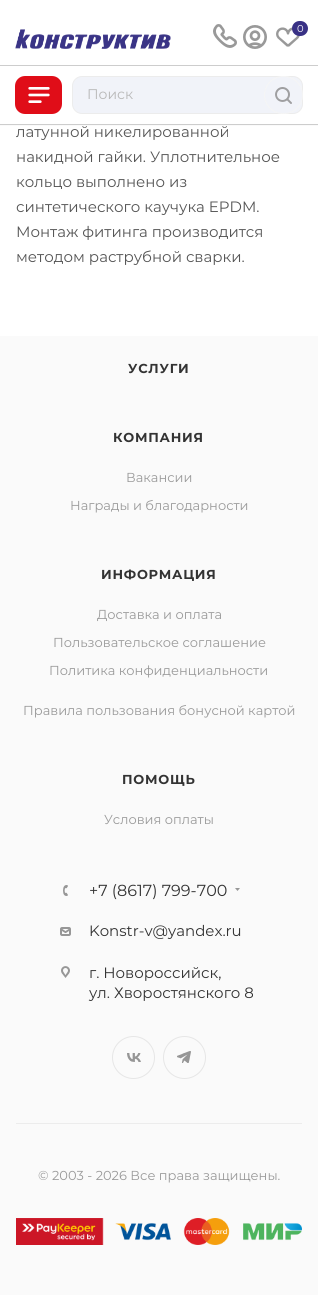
#include <cairo.h>
#include <math.h>
#include <stddef.h>


static void set_color(cairo_t *cr, unsigned color) {
    cairo_set_source_rgb(cr, (color >> 16) / 255.0, (color >> 8 & 255) / 255.0, (color & 255) / 255.0);
}

static void draw_text(cairo_t *cr, double x, double y, const char *s, const char *family, double size, int italic, int bold, unsigned color) {
    cairo_select_font_face(cr, family, italic ? CAIRO_FONT_SLANT_ITALIC : CAIRO_FONT_SLANT_NORMAL,
        bold ? CAIRO_FONT_WEIGHT_BOLD : CAIRO_FONT_WEIGHT_NORMAL);
    cairo_set_font_size(cr, size);
    set_color(cr, color);
    cairo_move_to(cr, x, y);
    cairo_show_text(cr, s);
}

static void draw_spaced(cairo_t *cr, double x, double y, const char *s, double letter, double word) {
    cairo_move_to(cr, x, y);
    while (*s) {
        char ch[5] = {0};
        int n = 0;
        do ch[n++] = *s++; while ((*s & 0xC0) == 0x80);
        cairo_show_text(cr, ch);
        cairo_rel_move_to(cr, letter + word * (*ch == ' '), 0);
    }
}

static void fill_rect(cairo_t *cr, double x, double y, double w, double h, unsigned color) {
    set_color(cr, color);
    cairo_rectangle(cr, x, y, w, h);
    cairo_fill(cr);
}

static void rounded_rect(cairo_t *cr, double x, double y, double w, double h, double r) {
    cairo_new_sub_path(cr);
    cairo_arc(cr, x + w - r, y + h - r, r, 0, M_PI / 2);
    cairo_arc(cr, x + r, y + h - r, r, M_PI / 2, M_PI);
    cairo_arc(cr, x + r, y + r, r, M_PI, 1.5 * M_PI);
    cairo_arc(cr, x + w - r, y + r, r, 1.5 * M_PI, 2 * M_PI);
    cairo_close_path(cr);
}

static void draw_image(cairo_t *cr, const char *path, double x, double y, double w, double h) {
    cairo_surface_t *image = cairo_image_surface_create_from_png(path);
    cairo_save(cr);
    cairo_set_source_surface(cr, image, x, y);
    cairo_rectangle(cr, x, y, w, h);
    cairo_fill(cr);
    cairo_restore(cr);
    cairo_surface_destroy(image);
}

int main(void) {
    cairo_surface_t *surface = cairo_image_surface_create(CAIRO_FORMAT_RGB24, 318, 1295);
    cairo_t *cr = cairo_create(surface);
    cairo_font_options_t *options = cairo_font_options_create();
    cairo_font_options_set_hint_metrics(options, CAIRO_HINT_METRICS_OFF);
    cairo_font_options_set_hint_style(options, CAIRO_HINT_STYLE_NONE);
    cairo_set_font_options(cr, options);
    cairo_set_miter_limit(cr, 4);
    set_color(cr, 0xFAFAFA);
    cairo_paint(cr);
    fill_rect(cr, 0, 0, 318, 124, 0xFFFFFF);
    draw_image(cr, "assets/img1.png", 15, 29, 156, 20);
    draw_image(cr, "assets/img2.png", 213, 24, 24, 24);
    draw_image(cr, "assets/img3.png", 243, 25, 24, 24);
    draw_image(cr, "assets/img4.png", 276, 27, 24, 20);
    set_color(cr, 0x393185);
    rounded_rect(cr, 292, 21, 16, 15, 7.5);
    cairo_fill(cr);
    draw_text(cr, 297, 32, "0", "Montserrat", 10, 0, 0, 0xFFFFFF);
    fill_rect(cr, 0, 65, 318, 1, 0xCDCDCD);
    fill_rect(cr, 0, 124, 318, 1, 0xCDCDCD);
    set_color(cr, 0xE00D18);
    rounded_rect(cr, 15, 76, 47, 38, 10);
    cairo_fill(cr);
    draw_image(cr, "assets/img5.png", 28, 87, 22, 16);
    set_color(cr, 0xF1F3F9);
    rounded_rect(cr, 72.5, 76.5, 230, 37, 9.5);
    cairo_fill_preserve(cr);
    set_color(cr, 0xECECEC);
    cairo_set_line_width(cr, 1);
    cairo_stroke(cr);
    draw_text(cr, 87, 99, "Поиск", "Montserrat", 14, 0, 0, 0xB8B8B8);
    rounded_rect(cr, 264.5, 76.5, 38, 37, 18.5);
    set_color(cr, 0xF5F5F5);
    cairo_stroke(cr);
    draw_image(cr, "assets/img6.png", 275, 87, 17, 17);
    fill_rect(cr, 0, 126, 318, 210, 0xFFFFFF);
    draw_text(cr, 16, 137, "латунной никелированной", "Montserrat", 15, 0, 0, 0x555555);
    draw_text(cr, 16, 162, "накидной гайки. Уплотнительное", "Montserrat", 15, 0, 0, 0x555555);
    draw_text(cr, 16, 187, "кольцо выполнено из", "Montserrat", 15, 0, 0, 0x555555);
    draw_text(cr, 16, 212, "синтетического каучука EPDM.", "Montserrat", 15, 0, 0, 0x555555);
    draw_text(cr, 16, 237, "Монтаж фитинга производится", "Montserrat", 15, 0, 0, 0x555555);
    draw_text(cr, 16, 262, "методом раструбной сварки.", "Montserrat", 15, 0, 0, 0x555555);
    cairo_select_font_face(cr, "Montserrat", CAIRO_FONT_SLANT_NORMAL, CAIRO_FONT_WEIGHT_BOLD);
    cairo_set_font_size(cr, 13);
    set_color(cr, 0x333333);
    draw_spaced(cr, 128, 373, "УСЛУГИ", 0.75, 0);
    draw_spaced(cr, 113, 442, "КОМПАНИЯ", 0.75, 0);
    draw_text(cr, 126, 482, "Вакансии", "Montserrat", 13, 0, 0, 0x999999);
    draw_text(cr, 70, 510, "Награды и благодарности", "Montserrat", 13, 0, 0, 0x999999);
    cairo_select_font_face(cr, "Montserrat", CAIRO_FONT_SLANT_NORMAL, CAIRO_FONT_WEIGHT_BOLD);
    set_color(cr, 0x333333);
    draw_spaced(cr, 101, 579, "ИНФОРМАЦИЯ", 0.75, 0);
    draw_text(cr, 97, 619, "Доставка и оплата", "Montserrat", 13, 0, 0, 0x999999);
    draw_text(cr, 53, 647, "Пользовательское соглашение", "Montserrat", 13, 0, 0, 0x999999);
    draw_text(cr, 49, 675, "Политика конфиденциальности", "Montserrat", 13, 0, 0, 0x999999);
    draw_text(cr, 23, 715, "Правила пользования бонусной картой", "Montserrat", 13, 0, 0, 0x999999);
    cairo_select_font_face(cr, "Montserrat", CAIRO_FONT_SLANT_NORMAL, CAIRO_FONT_WEIGHT_BOLD);
    set_color(cr, 0x333333);
    draw_spaced(cr, 122, 784, "ПОМОЩЬ", 0.75, 0);
    draw_text(cr, 104, 824, "Условия оплаты", "Montserrat", 13, 0, 0, 0x999999);
    draw_image(cr, "assets/img7.png", 63, 885, 5, 11);
    draw_text(cr, 89, 896, "+7 (8617) 799-700", "Montserrat", 16, 0, 0, 0x333333);
    set_color(cr, 0x979797);
    cairo_set_fill_rule(cr, CAIRO_FILL_RULE_EVEN_ODD);
    cairo_new_path(cr);
    cairo_move_to(cr, 235, 888);
    cairo_line_to(cr, 240, 888);
    cairo_line_to(cr, 237.5, 891);
    cairo_close_path(cr);
    cairo_fill(cr);
    draw_image(cr, "assets/img8.png", 60, 927, 11, 9);
    draw_text(cr, 89, 936, "Konstr-v@yandex.ru", "Montserrat", 15, 0, 0, 0x333333);
    draw_image(cr, "assets/img9.png", 61, 966, 9, 12);
    draw_text(cr, 89, 978, "г. Новороссийск,", "Montserrat", 15, 0, 0, 0x333333);
    draw_text(cr, 89, 998, "ул. Хворостянского 8", "Montserrat", 15, 0, 0, 0x333333);
    draw_image(cr, "assets/img10.png", 127, 1053, 14, 9);
    cairo_arc(cr, 133.5, 1057.5, 21, 0, 2 * M_PI);
    set_color(cr, 0xE6E6E6);
    cairo_stroke(cr);
    draw_image(cr, "assets/img11.png", 177, 1051, 14, 12);
    cairo_arc(cr, 184.5, 1057.5, 21, 0, 2 * M_PI);
    cairo_stroke(cr);
    fill_rect(cr, 16, 1123, 286, 1, 0xECECEC);
    draw_text(cr, 38, 1180, "© 2003 - 2026 Все права защищены.", "Montserrat", 13, 0, 0, 0x999999);
    draw_image(cr, "assets/img12.png", 16, 1218, 286, 27);
    cairo_surface_write_to_png(surface, "output.png");
    cairo_font_options_destroy(options);
    cairo_destroy(cr);
    cairo_surface_destroy(surface);
    return 0;
}
